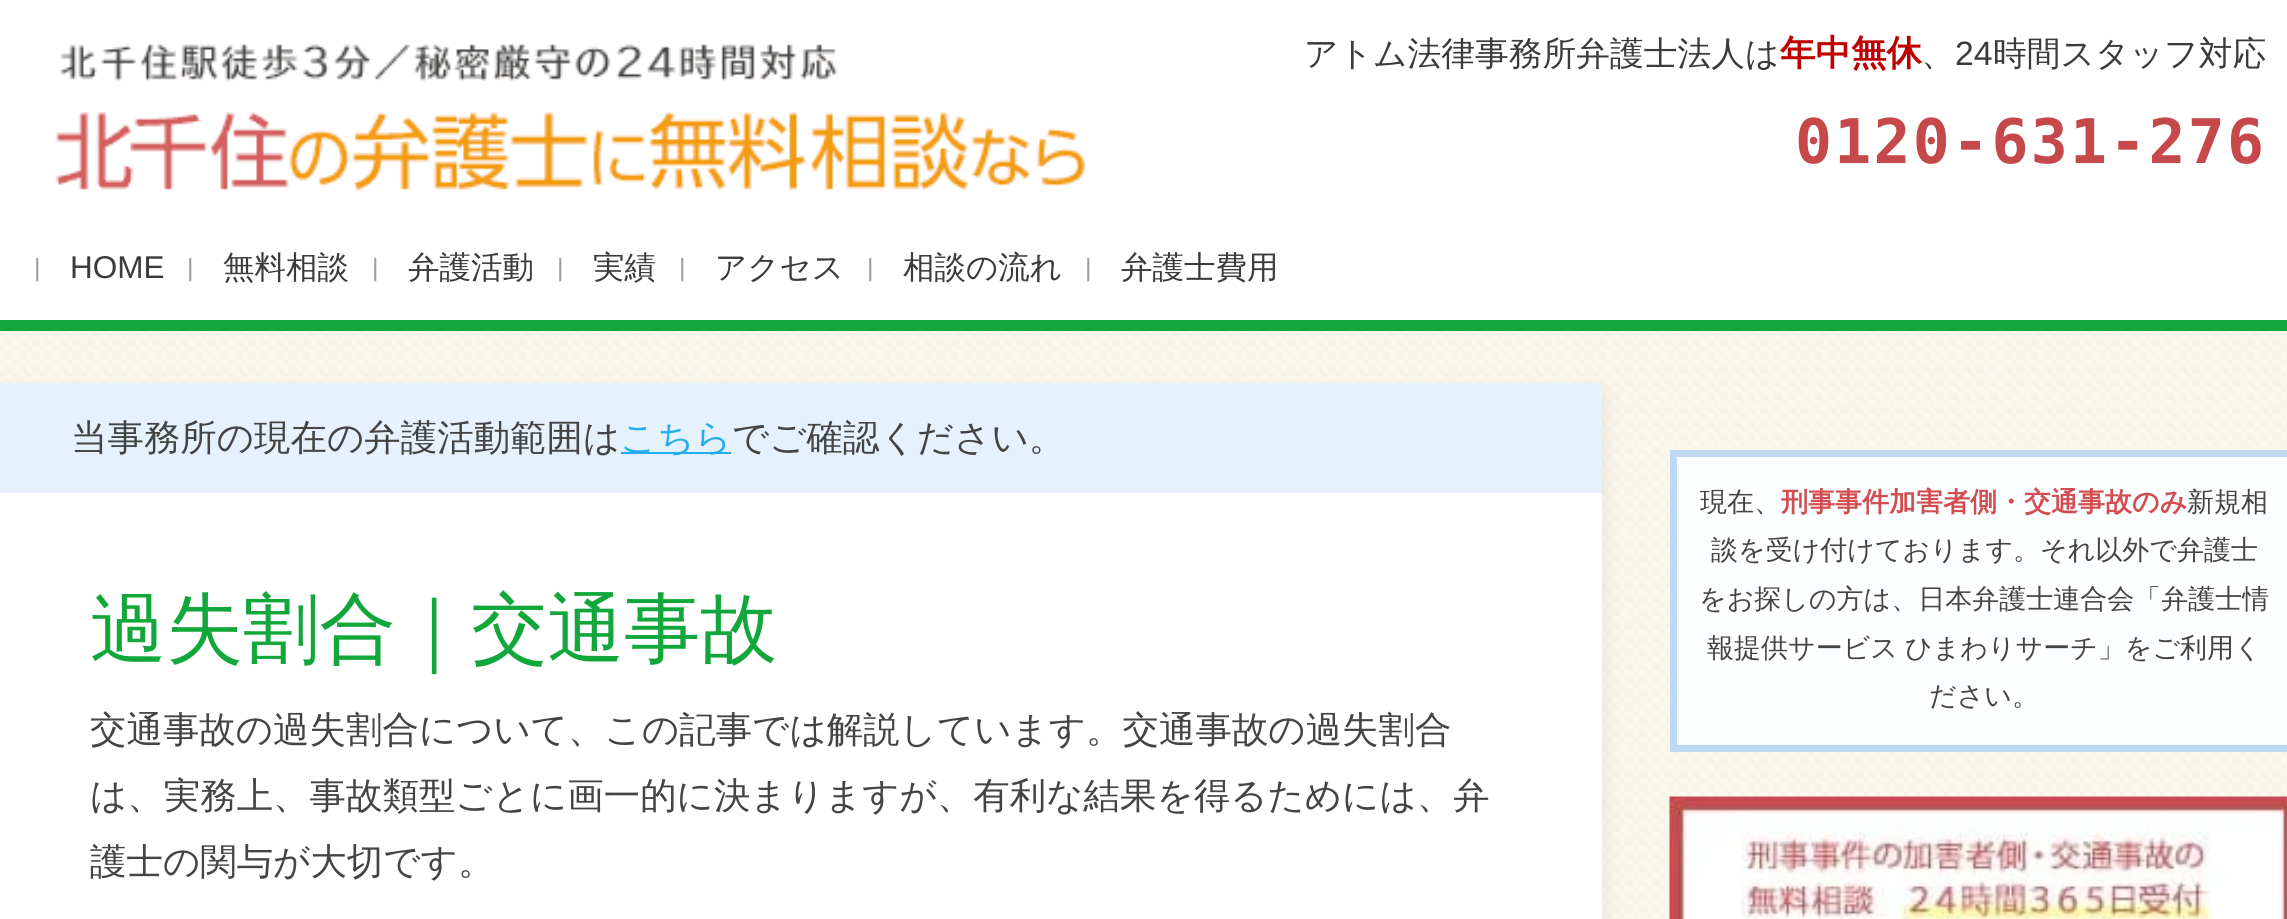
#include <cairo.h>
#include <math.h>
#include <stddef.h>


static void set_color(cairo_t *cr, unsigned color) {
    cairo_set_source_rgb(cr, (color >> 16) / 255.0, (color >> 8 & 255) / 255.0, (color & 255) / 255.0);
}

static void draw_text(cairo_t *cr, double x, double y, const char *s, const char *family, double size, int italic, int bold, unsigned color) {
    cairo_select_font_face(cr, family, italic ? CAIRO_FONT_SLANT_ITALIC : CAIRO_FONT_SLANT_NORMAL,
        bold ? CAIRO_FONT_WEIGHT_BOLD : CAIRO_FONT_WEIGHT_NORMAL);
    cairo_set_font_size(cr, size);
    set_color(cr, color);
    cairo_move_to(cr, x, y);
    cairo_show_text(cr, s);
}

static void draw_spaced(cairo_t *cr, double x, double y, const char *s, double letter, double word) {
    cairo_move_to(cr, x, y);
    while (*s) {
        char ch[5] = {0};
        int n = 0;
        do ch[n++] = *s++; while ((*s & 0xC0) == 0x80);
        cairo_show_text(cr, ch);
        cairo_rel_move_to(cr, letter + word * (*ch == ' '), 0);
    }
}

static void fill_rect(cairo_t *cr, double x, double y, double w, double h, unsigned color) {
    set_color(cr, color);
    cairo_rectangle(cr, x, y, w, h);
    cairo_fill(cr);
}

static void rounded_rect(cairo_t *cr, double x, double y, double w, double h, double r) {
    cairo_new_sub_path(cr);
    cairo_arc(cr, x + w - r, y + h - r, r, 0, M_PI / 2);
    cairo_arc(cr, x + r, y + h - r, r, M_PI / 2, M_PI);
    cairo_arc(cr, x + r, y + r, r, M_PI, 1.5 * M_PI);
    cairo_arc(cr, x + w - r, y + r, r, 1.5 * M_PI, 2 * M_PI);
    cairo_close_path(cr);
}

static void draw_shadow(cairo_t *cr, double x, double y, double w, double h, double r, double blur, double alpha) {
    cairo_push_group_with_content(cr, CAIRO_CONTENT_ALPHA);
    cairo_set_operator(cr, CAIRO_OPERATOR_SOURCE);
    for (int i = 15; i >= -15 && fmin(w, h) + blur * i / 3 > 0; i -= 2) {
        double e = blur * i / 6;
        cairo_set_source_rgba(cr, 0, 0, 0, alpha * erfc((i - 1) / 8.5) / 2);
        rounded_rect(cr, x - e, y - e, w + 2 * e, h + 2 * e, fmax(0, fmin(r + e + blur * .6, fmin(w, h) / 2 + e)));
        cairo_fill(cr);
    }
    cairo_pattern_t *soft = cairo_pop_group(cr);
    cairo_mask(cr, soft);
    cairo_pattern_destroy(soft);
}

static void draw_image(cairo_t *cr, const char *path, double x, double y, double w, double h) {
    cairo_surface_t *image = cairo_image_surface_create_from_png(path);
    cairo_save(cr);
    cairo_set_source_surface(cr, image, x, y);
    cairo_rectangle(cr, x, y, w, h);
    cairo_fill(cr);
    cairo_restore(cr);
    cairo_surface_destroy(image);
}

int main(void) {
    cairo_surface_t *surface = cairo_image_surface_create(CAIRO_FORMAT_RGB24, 2287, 919);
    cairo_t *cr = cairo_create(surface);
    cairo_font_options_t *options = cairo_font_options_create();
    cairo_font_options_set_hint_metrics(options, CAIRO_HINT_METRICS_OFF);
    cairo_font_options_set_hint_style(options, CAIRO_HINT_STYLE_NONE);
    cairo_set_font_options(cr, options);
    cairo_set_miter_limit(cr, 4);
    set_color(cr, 0xFFFFFF);
    cairo_paint(cr);
    fill_rect(cr, 0, 320, 2287, 11, 0x12A73B);
    draw_image(cr, "assets/img1.png", 55, 42, 1031, 150);
    draw_text(cr, 1304, 65, "アトム法律事務所弁護士法人は", "WenQuanYi Zen Hei Medium", 33.75, 0, 0, 0x3B3B3B);
    draw_text(cr, 1780, 65, "年中無休", "WenQuanYi Zen Hei", 35.5, 0, 1, 0xC00000);
    draw_text(cr, 1955, 65, "24", "Liberation Sans", 33.75, 0, 0, 0x3B3B3B);
    draw_text(cr, 1993, 65, "時間スタッフ対応", "WenQuanYi Zen Hei Medium", 33.75, 0, 0, 0x3B3B3B);
    draw_text(cr, 1921, 65, "、", "WenQuanYi Zen Hei Medium", 33.75, 0, 0, 0x3B3B3B);
    cairo_select_font_face(cr, "DejaVu Sans Mono", CAIRO_FONT_SLANT_NORMAL, CAIRO_FONT_WEIGHT_BOLD);
    cairo_set_font_size(cr, 61.5);
    set_color(cr, 0xC5484A);
    draw_spaced(cr, 1795, 163, "0120-631-276", 2.25, 0);
    draw_text(cr, 34, 276, "|", "Liberation Sans", 25, 0, 0, 0x9C9C9C);
    draw_text(cr, 70, 278, "HOME", "Liberation Sans", 31.5, 0, 0, 0x3B3B3B);
    draw_text(cr, 187, 276, "|", "Liberation Sans", 25, 0, 0, 0x9C9C9C);
    draw_text(cr, 223, 278, "無料相談", "WenQuanYi Zen Hei Medium", 31.5, 0, 0, 0x3B3B3B);
    draw_text(cr, 372, 276, "|", "Liberation Sans", 25, 0, 0, 0x9C9C9C);
    draw_text(cr, 408, 278, "弁護活動", "WenQuanYi Zen Hei Medium", 31.5, 0, 0, 0x3B3B3B);
    draw_text(cr, 557, 276, "|", "Liberation Sans", 25, 0, 0, 0x9C9C9C);
    draw_text(cr, 593, 278, "実績", "WenQuanYi Zen Hei Medium", 31.5, 0, 0, 0x3B3B3B);
    draw_text(cr, 679, 276, "|", "Liberation Sans", 25, 0, 0, 0x9C9C9C);
    draw_text(cr, 715, 278, "アクセス", "WenQuanYi Zen Hei Medium", 31.5, 0, 0, 0x3B3B3B);
    draw_text(cr, 867, 276, "|", "Liberation Sans", 25, 0, 0, 0x9C9C9C);
    draw_text(cr, 903, 278, "相談の流れ", "WenQuanYi Zen Hei Medium", 31.5, 0, 0, 0x3B3B3B);
    draw_text(cr, 1085, 276, "|", "Liberation Sans", 25, 0, 0, 0x9C9C9C);
    draw_text(cr, 1121, 278, "弁護士費用", "WenQuanYi Zen Hei Medium", 31.5, 0, 0, 0x3B3B3B);
    draw_image(cr, "assets/img2.png", 0, 331, 2287, 588);
    set_color(cr, 0x000000);
    draw_shadow(cr, 0, 392, 1602, 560, 0, 11, 0.1);
    fill_rect(cr, 0, 493, 1602, 426, 0xFFFFFF);
    fill_rect(cr, 0, 383, 1602, 110, 0xE5F1FD);
    draw_text(cr, 71, 450, "当事務所の現在の弁護活動範囲は", "WenQuanYi Zen Hei Medium", 36.45, 0, 0, 0x444444);
    fill_rect(cr, 621, 452, 110, 2, 0x24ADEC);
    draw_text(cr, 620, 450, "こちら", "WenQuanYi Zen Hei Medium", 36.45, 0, 0, 0x24ADEC);
    draw_text(cr, 732, 450, "でご確認ください。", "WenQuanYi Zen Hei Medium", 36.45, 0, 0, 0x444444);
    draw_text(cr, 90, 655, "過失割合｜交通事故", "WenQuanYi Zen Hei Medium", 76.5, 0, 0, 0x12A73B);
    draw_text(cr, 90, 742, "交通事故の過失割合について、この記事では解説しています。交通事故の過失割合", "WenQuanYi Zen Hei Medium", 36.45, 0, 0, 0x444444);
    draw_text(cr, 90, 808, "は、実務上、事故類型ごとに画一的に決まりますが、有利な結果を得るためには、弁", "WenQuanYi Zen Hei Medium", 36.45, 0, 0, 0x444444);
    draw_text(cr, 90, 874, "護士の関与が大切です。", "WenQuanYi Zen Hei Medium", 36.45, 0, 0, 0x444444);
    set_color(cr, 0xFDFEFF);
    cairo_rectangle(cr, 1673.5, 453.5, 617, 295);
    cairo_fill_preserve(cr);
    set_color(cr, 0xBED9F3);
    cairo_set_line_width(cr, 7);
    cairo_stroke(cr);
    draw_text(cr, 1700, 511, "現在、", "WenQuanYi Zen Hei Medium", 27, 0, 0, 0x444444);
    draw_text(cr, 1781, 511, "刑事事件加害者側・交通事故のみ", "WenQuanYi Zen Hei", 27, 0, 1, 0xD14D4F);
    draw_text(cr, 2187, 511, "新規相", "WenQuanYi Zen Hei Medium", 27, 0, 0, 0x444444);
    draw_text(cr, 1711, 559, "談を受け付けております。それ以外で弁護士", "WenQuanYi Zen Hei Medium", 27, 0, 0, 0x444444);
    draw_text(cr, 1699, 608, "をお探しの方は、日本弁護士連合会「弁護士情", "WenQuanYi Zen Hei Medium", 27, 0, 0, 0x444444);
    draw_spaced(cr, 1707, 657, "報提供サービス ひまわりサーチ」をご利用く", 0, -1);
    draw_text(cr, 1929, 705, "ださい。", "WenQuanYi Zen Hei Medium", 27, 0, 0, 0x444444);
    draw_image(cr, "assets/img3.png", 1669, 796, 618, 123);
    cairo_surface_write_to_png(surface, "output.png");
    cairo_font_options_destroy(options);
    cairo_destroy(cr);
    cairo_surface_destroy(surface);
    return 0;
}
